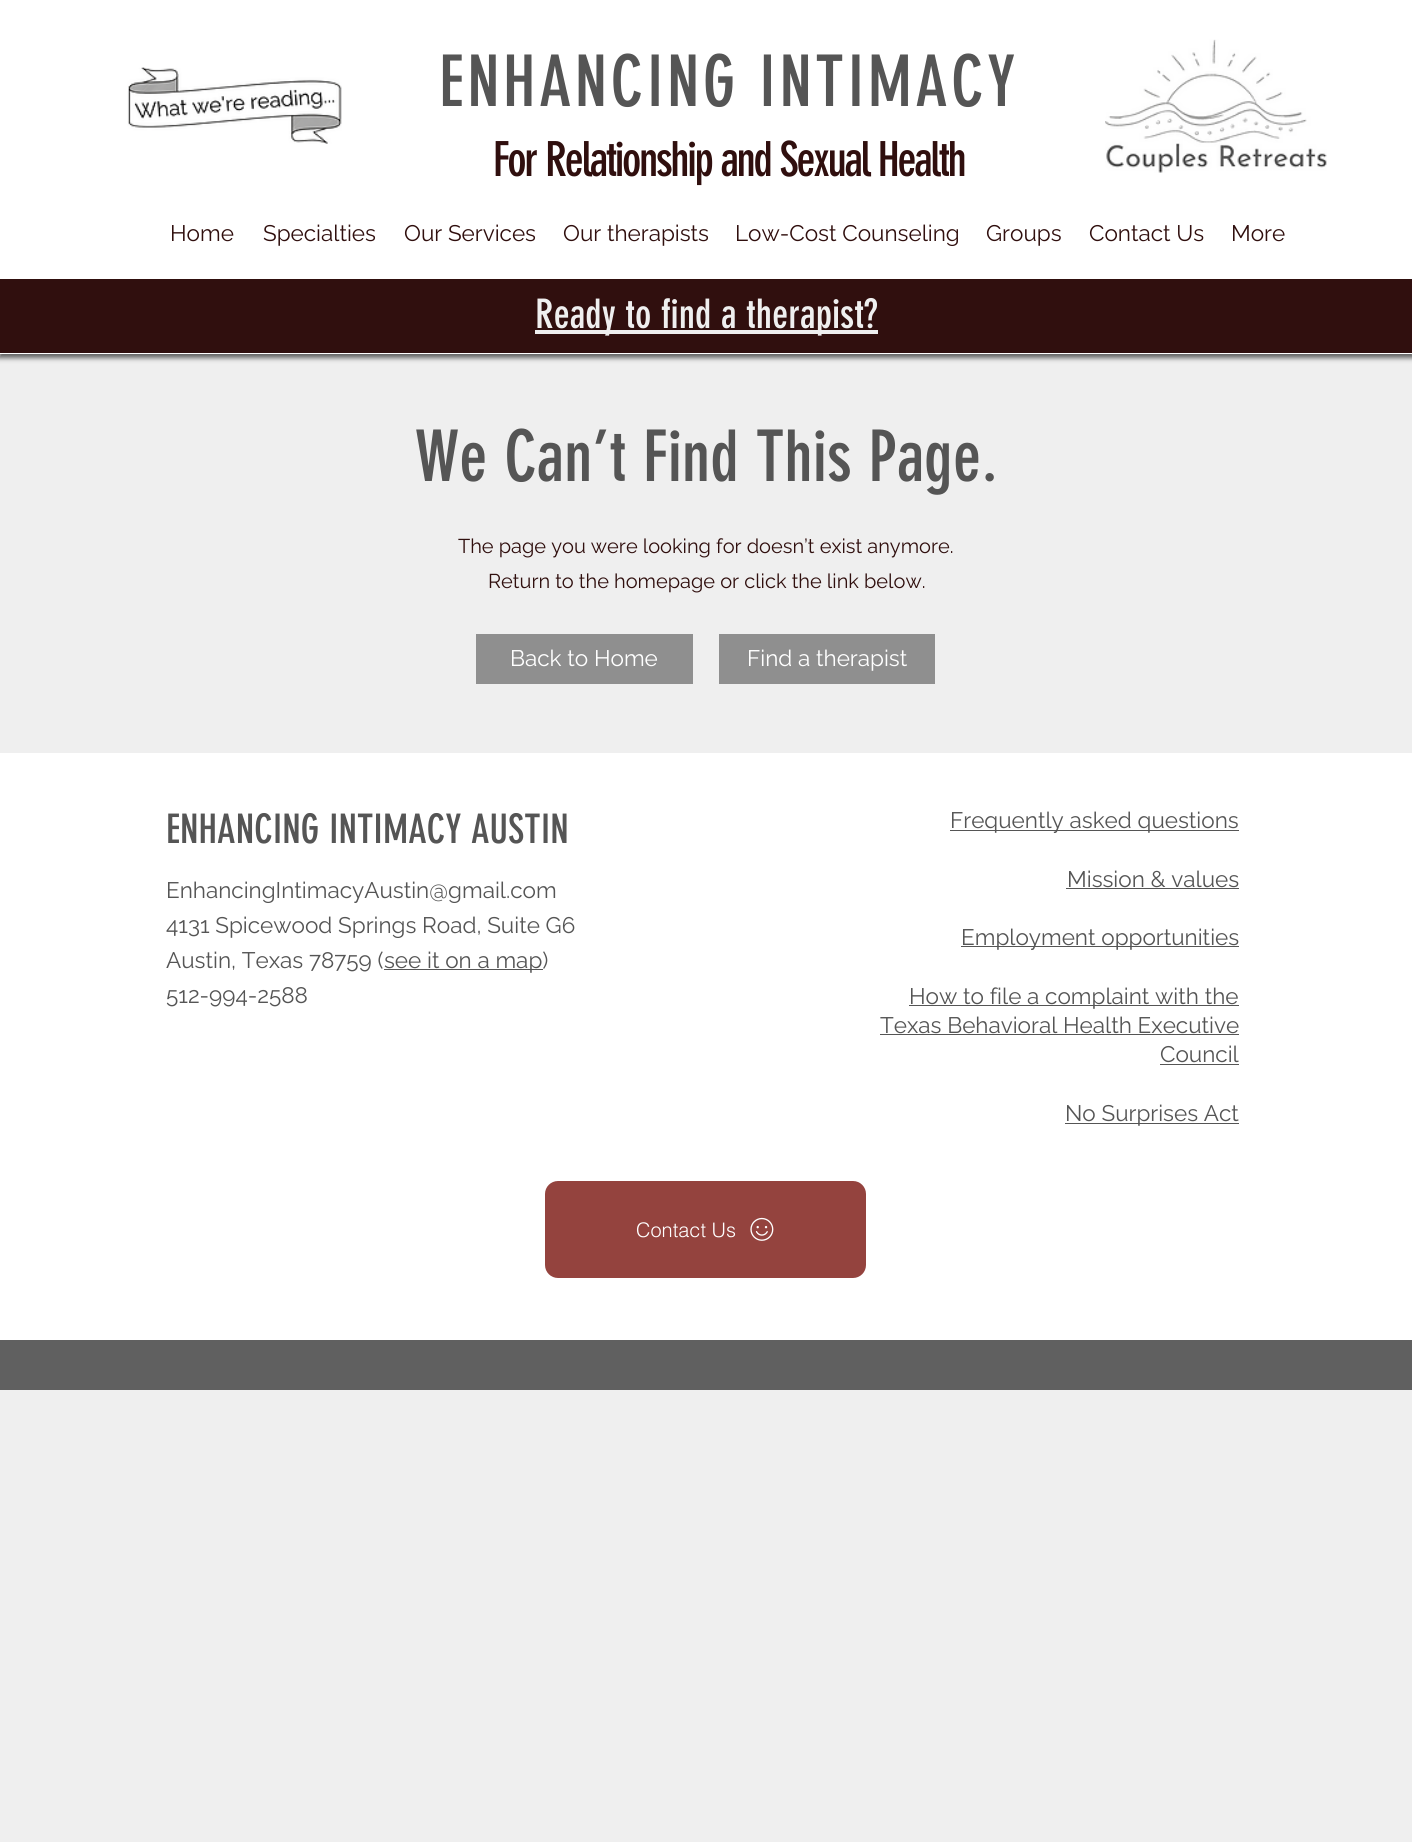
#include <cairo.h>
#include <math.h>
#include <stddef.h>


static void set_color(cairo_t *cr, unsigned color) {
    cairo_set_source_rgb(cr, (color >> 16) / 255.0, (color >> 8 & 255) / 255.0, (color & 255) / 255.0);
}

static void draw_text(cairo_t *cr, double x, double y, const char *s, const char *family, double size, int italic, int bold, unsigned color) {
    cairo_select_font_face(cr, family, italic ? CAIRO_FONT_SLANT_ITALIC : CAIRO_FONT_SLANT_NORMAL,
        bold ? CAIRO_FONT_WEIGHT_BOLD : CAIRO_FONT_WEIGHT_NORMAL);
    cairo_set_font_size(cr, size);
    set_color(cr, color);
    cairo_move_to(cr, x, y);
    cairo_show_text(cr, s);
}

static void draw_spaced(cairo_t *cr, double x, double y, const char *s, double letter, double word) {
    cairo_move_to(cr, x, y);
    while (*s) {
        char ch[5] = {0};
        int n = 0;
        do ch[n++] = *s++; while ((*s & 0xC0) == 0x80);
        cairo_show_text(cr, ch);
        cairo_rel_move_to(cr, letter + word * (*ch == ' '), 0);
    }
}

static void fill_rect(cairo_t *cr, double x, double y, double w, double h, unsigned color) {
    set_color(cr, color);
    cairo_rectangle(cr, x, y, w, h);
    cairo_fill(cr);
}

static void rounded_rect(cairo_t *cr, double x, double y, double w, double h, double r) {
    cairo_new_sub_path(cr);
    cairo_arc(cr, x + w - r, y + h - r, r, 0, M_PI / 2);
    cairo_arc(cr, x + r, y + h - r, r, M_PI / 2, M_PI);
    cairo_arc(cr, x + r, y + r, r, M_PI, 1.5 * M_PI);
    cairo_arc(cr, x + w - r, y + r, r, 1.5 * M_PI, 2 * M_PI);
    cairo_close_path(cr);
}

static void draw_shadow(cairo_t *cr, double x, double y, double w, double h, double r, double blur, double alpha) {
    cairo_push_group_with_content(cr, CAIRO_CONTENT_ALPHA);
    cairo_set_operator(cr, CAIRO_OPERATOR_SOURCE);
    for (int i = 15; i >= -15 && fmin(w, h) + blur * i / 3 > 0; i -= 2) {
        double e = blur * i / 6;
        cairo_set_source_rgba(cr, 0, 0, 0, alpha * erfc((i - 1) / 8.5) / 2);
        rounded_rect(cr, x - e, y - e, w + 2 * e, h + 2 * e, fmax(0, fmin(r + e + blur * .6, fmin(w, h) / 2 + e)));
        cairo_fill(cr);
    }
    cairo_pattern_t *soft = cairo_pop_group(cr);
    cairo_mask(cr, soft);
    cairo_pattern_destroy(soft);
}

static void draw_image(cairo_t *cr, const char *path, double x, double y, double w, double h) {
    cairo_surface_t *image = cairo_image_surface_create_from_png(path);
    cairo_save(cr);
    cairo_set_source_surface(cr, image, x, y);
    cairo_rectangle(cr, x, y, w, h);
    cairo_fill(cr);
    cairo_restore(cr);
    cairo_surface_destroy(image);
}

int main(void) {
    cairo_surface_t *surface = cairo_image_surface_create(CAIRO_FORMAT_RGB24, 1412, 1842);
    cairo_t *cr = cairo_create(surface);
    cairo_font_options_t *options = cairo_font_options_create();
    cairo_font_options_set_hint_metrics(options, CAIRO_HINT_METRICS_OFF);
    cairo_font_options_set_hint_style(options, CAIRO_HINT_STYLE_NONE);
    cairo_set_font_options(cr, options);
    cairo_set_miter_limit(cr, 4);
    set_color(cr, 0xEFEFEF);
    cairo_paint(cr);
    set_color(cr, 0x000000);
    draw_shadow(cr, -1, 1, 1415, 357, 0, 2.5, 0.6);
    fill_rect(cr, 0, 0, 1412, 354, 0xFFFFFF);
    draw_image(cr, "assets/img1.png", 127, 67, 215, 77);
    cairo_select_font_face(cr, "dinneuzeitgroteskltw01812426", CAIRO_FONT_SLANT_NORMAL, CAIRO_FONT_WEIGHT_NORMAL);
    cairo_set_font_size(cr, 70);
    set_color(cr, 0x555555);
    draw_spaced(cr, 439, 106, "ENHANCING INTIMACY", 3.5, 0);
    cairo_set_font_size(cr, 47.5);
    set_color(cr, 0x300F0E);
    draw_spaced(cr, 493, 176, "For Relationship and Sexual Health", -2.4, 0);
    draw_image(cr, "assets/img2.png", 1105, 39, 222, 134);
    draw_text(cr, 170, 241, "Home", "Raleway", 22.5, 0, 0, 0x300F0E);
    draw_text(cr, 263, 241, "Specialties", "Raleway", 22.5, 0, 0, 0x300F0E);
    draw_text(cr, 404, 241, "Our Services", "Raleway", 22.5, 0, 0, 0x300F0E);
    draw_text(cr, 563, 241, "Our therapists", "Raleway", 22.5, 0, 0, 0x300F0E);
    draw_text(cr, 735, 241, "Low-Cost Counseling", "Raleway", 22.5, 0, 0, 0x300F0E);
    draw_text(cr, 986, 241, "Groups", "Raleway", 22.5, 0, 0, 0x300F0E);
    draw_text(cr, 1089, 241, "Contact Us", "Raleway", 22.5, 0, 0, 0x300F0E);
    draw_text(cr, 1231, 241, "More", "Raleway", 22.5, 0, 0, 0x300F0E);
    fill_rect(cr, 0, 279, 1412, 74, 0x300F0E);
    fill_rect(cr, 535, 330, 343, 4, 0xEFEFEF);
    draw_text(cr, 535, 328, "Ready to find a therapist?", "dinneuzeitgroteskltw01812426", 40, 0, 0, 0xEFEFEF);
    draw_text(cr, 415, 481, "We Can’t Find This Page.", "dinneuzeitgroteskltw01812426", 70, 0, 0, 0x555555);
    draw_text(cr, 458, 553, "The page you were looking for doesn’t exist anymore.", "Raleway", 20, 0, 0, 0x300F0E);
    draw_text(cr, 488, 588, "Return to the homepage or click the link below.", "Raleway", 20, 0, 0, 0x300F0E);
    fill_rect(cr, 476, 634, 217, 50, 0x8F8F8F);
    draw_text(cr, 510, 666, "Back to Home", "Raleway", 22.5, 0, 0, 0xFFFFFF);
    fill_rect(cr, 719, 634, 216, 50, 0x8F8F8F);
    draw_text(cr, 747, 666, "Find a therapist", "Raleway", 22.5, 0, 0, 0xFFFFFF);
    fill_rect(cr, 0, 753, 1412, 587, 0xFFFFFF);
    draw_text(cr, 166, 843, "ENHANCING INTIMACY AUSTIN", "dinneuzeitgroteskltw01812426", 40, 0, 0, 0x555555);
    fill_rect(cr, 950, 830, 289, 1, 0x555555);
    draw_text(cr, 950, 828, "Frequently asked questions", "Raleway", 22.5, 0, 0, 0x555555);
    draw_text(cr, 1067, 887, "Mission & values", "Raleway", 22.5, 0, 0, 0x555555);
    fill_rect(cr, 1066, 888, 173, 1, 0x555555);
    fill_rect(cr, 961, 946, 278, 1, 0x555555);
    draw_text(cr, 961, 945, "Employment opportunities", "Raleway", 22.5, 0, 0, 0x555555);
    fill_rect(cr, 909, 1005, 330, 1, 0x555555);
    draw_text(cr, 909, 1004, "How to file a complaint with the", "Raleway", 22.5, 0, 0, 0x555555);
    draw_text(cr, 880, 1033, "Texas Behavioral Health Executive", "Raleway", 22.5, 0, 0, 0x555555);
    fill_rect(cr, 880, 1034, 359, 1, 0x555555);
    draw_text(cr, 1160, 1062, "Council", "Raleway", 22.5, 0, 0, 0x555555);
    fill_rect(cr, 1160, 1064, 79, 1, 0x555555);
    fill_rect(cr, 1065, 1123, 174, 1, 0x555555);
    draw_text(cr, 1065, 1121, "No Surprises Act", "Raleway", 22.5, 0, 0, 0x555555);
    draw_text(cr, 166, 898, "EnhancingIntimacyAustin@gmail.com", "Raleway", 22.5, 0, 0, 0x555555);
    draw_text(cr, 166, 933, "4131 Spicewood Springs Road, Suite G6", "Raleway", 22.5, 0, 0, 0x555555);
    draw_text(cr, 166, 968, "Austin, Texas 78759 (", "Raleway", 22.5, 0, 0, 0x555555);
    fill_rect(cr, 384, 969, 159, 1, 0x555555);
    draw_text(cr, 384, 968, "see it on a map)", "Raleway", 22.5, 0, 0, 0x555555);
    draw_text(cr, 166, 1003, "512-994-2588", "Raleway", 22.5, 0, 0, 0x555555);
    set_color(cr, 0x94433E);
    rounded_rect(cr, 545, 1181, 321, 97, 13);
    cairo_fill(cr);
    draw_text(cr, 636, 1237, "Contact Us", "helvetica Light", 20, 0, 0, 0xFFFFFF);
    draw_image(cr, "assets/img3.png", 750, 1217, 24, 24);
    fill_rect(cr, 0, 1340, 1412, 50, 0x606060);
    cairo_surface_write_to_png(surface, "output.png");
    cairo_font_options_destroy(options);
    cairo_destroy(cr);
    cairo_surface_destroy(surface);
    return 0;
}
